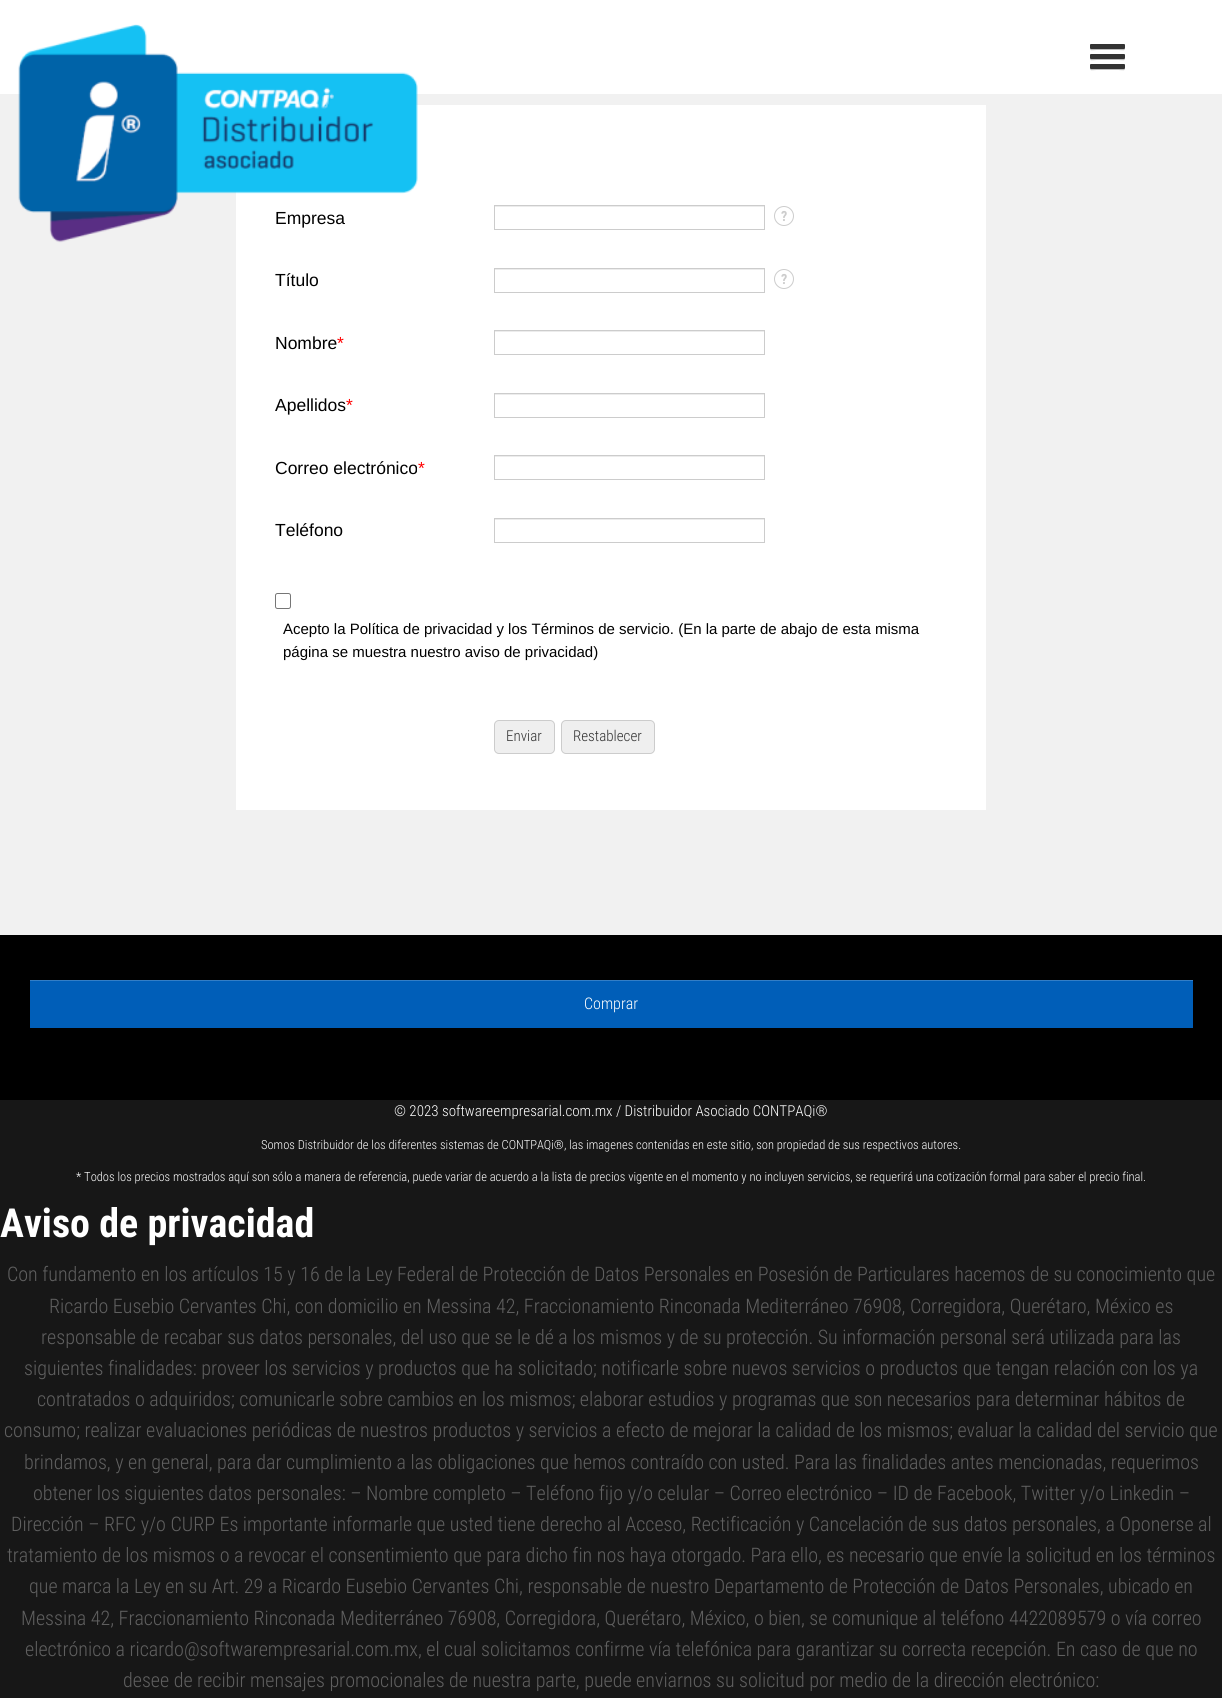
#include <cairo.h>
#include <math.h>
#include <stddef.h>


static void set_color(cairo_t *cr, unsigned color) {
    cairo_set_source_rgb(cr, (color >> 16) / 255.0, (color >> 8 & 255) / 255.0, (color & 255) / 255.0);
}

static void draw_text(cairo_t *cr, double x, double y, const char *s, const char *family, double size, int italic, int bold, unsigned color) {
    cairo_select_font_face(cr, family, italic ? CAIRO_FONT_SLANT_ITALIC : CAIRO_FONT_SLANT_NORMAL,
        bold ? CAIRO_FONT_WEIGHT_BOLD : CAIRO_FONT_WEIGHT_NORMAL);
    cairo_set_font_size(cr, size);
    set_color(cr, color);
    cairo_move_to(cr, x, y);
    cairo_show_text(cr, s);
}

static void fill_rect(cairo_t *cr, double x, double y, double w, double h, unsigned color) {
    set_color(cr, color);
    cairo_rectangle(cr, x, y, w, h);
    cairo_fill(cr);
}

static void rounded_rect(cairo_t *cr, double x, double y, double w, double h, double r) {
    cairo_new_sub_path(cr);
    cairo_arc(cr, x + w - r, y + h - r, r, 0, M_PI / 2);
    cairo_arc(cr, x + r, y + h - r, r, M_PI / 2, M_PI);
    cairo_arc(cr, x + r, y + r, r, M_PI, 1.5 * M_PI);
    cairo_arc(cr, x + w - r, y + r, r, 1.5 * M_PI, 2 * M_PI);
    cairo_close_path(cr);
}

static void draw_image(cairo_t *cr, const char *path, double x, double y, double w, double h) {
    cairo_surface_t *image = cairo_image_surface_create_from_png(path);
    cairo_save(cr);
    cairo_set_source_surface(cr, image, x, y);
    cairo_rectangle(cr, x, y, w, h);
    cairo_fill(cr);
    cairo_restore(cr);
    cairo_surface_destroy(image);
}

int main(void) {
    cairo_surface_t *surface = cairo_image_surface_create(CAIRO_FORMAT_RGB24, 1222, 1698);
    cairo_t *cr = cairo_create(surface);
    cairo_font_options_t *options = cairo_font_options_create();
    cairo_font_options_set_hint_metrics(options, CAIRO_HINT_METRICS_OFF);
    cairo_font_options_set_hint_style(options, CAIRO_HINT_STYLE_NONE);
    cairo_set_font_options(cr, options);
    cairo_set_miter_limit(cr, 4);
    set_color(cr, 0xF1F1F1);
    cairo_paint(cr);
    fill_rect(cr, 0, 0, 1222, 94, 0xFFFFFF);
    fill_rect(cr, 236, 105, 750, 705, 0xFFFFFF);
    draw_text(cr, 275, 224, "Empresa", "Liberation Sans", 17.5, 0, 0, 0x000000);
    draw_image(cr, "assets/img1.png", 18, 24, 400, 219);
    set_color(cr, 0xBFBFBF);
    cairo_new_path(cr);
    cairo_move_to(cr, 1090, 47.5);
    cairo_curve_to(cr, 1090, 51.5, 1091.5, 50, 1096.5, 50);
    cairo_line_to(cr, 1118.5, 50);
    cairo_curve_to(cr, 1123.5, 50, 1125, 51.5, 1125, 47.5);
    cairo_curve_to(cr, 1125, 48, 1124.5, 49, 1124, 49);
    cairo_line_to(cr, 1091, 49);
    cairo_curve_to(cr, 1090.5, 49, 1090, 48, 1090, 47.5);
    cairo_close_path(cr);
    cairo_fill(cr);
    set_color(cr, 0x333333);
    rounded_rect(cr, 1090, 44, 35, 5, 1);
    cairo_fill(cr);
    set_color(cr, 0xBFBFBF);
    cairo_new_path(cr);
    cairo_move_to(cr, 1090, 57.5);
    cairo_curve_to(cr, 1090, 61.5, 1091.5, 60, 1096.5, 60);
    cairo_line_to(cr, 1118.5, 60);
    cairo_curve_to(cr, 1123.5, 60, 1125, 61.5, 1125, 57.5);
    cairo_curve_to(cr, 1125, 58, 1124.5, 59, 1124, 59);
    cairo_line_to(cr, 1091, 59);
    cairo_curve_to(cr, 1090.5, 59, 1090, 58, 1090, 57.5);
    cairo_close_path(cr);
    cairo_fill(cr);
    set_color(cr, 0x333333);
    rounded_rect(cr, 1090, 54, 35, 5, 1);
    cairo_fill(cr);
    set_color(cr, 0xBFBFBF);
    cairo_new_path(cr);
    cairo_move_to(cr, 1090, 67.5);
    cairo_curve_to(cr, 1090, 71.5, 1091.5, 70, 1096.5, 70);
    cairo_line_to(cr, 1118.5, 70);
    cairo_curve_to(cr, 1123.5, 70, 1125, 71.5, 1125, 67.5);
    cairo_curve_to(cr, 1125, 68, 1124.5, 69, 1124, 69);
    cairo_line_to(cr, 1091, 69);
    cairo_curve_to(cr, 1090.5, 69, 1090, 68, 1090, 67.5);
    cairo_close_path(cr);
    cairo_fill(cr);
    set_color(cr, 0x333333);
    rounded_rect(cr, 1090, 64, 35, 5, 1);
    cairo_fill(cr);
    fill_rect(cr, 495, 206, 269, 1, 0xECECEC);
    cairo_rectangle(cr, 494.5, 205.5, 270, 24);
    set_color(cr, 0xCCCCCC);
    cairo_set_line_width(cr, 1);
    cairo_stroke(cr);
    cairo_arc(cr, 784, 216, 9.5, 0, 2 * M_PI);
    cairo_stroke(cr);
    draw_text(cr, 781, 221, "?", "Roboto Condensed", 14, 0, 1, 0xCCCCCC);
    draw_text(cr, 275, 286, "Título", "Liberation Sans", 17.5, 0, 0, 0x000000);
    fill_rect(cr, 495, 269, 269, 1, 0xECECEC);
    cairo_rectangle(cr, 494.5, 268.5, 270, 24);
    set_color(cr, 0xCCCCCC);
    cairo_stroke(cr);
    cairo_arc(cr, 784, 279, 9.5, 0, 2 * M_PI);
    cairo_stroke(cr);
    draw_text(cr, 781, 284, "?", "Roboto Condensed", 14, 0, 1, 0xCCCCCC);
    draw_text(cr, 275, 349, "Nombre", "Liberation Sans", 17.5, 0, 0, 0x000000);
    draw_text(cr, 337, 349, "*", "Liberation Sans", 17.5, 0, 0, 0xFF0000);
    fill_rect(cr, 495, 331, 269, 1, 0xECECEC);
    cairo_rectangle(cr, 494.5, 330.5, 270, 24);
    set_color(cr, 0xCCCCCC);
    cairo_stroke(cr);
    draw_text(cr, 275, 411, "Apellidos", "Liberation Sans", 17.5, 0, 0, 0x000000);
    draw_text(cr, 346, 411, "*", "Liberation Sans", 17.5, 0, 0, 0xFF0000);
    fill_rect(cr, 495, 394, 269, 1, 0xECECEC);
    cairo_rectangle(cr, 494.5, 393.5, 270, 24);
    set_color(cr, 0xCCCCCC);
    cairo_stroke(cr);
    draw_text(cr, 275, 474, "Correo electrónico", "Liberation Sans", 17.5, 0, 0, 0x000000);
    draw_text(cr, 418, 474, "*", "Liberation Sans", 17.5, 0, 0, 0xFF0000);
    fill_rect(cr, 495, 456, 269, 1, 0xECECEC);
    cairo_rectangle(cr, 494.5, 455.5, 270, 24);
    set_color(cr, 0xCCCCCC);
    cairo_stroke(cr);
    draw_text(cr, 275, 536, "Teléfono", "Liberation Sans", 17.5, 0, 0, 0x000000);
    fill_rect(cr, 495, 519, 269, 1, 0xECECEC);
    cairo_rectangle(cr, 494.5, 518.5, 270, 24);
    set_color(cr, 0xCCCCCC);
    cairo_stroke(cr);
    rounded_rect(cr, 275.5, 593.5, 15, 15, 2);
    set_color(cr, 0x767676);
    cairo_stroke(cr);
    draw_text(cr, 283, 634, "Acepto la Política de privacidad y los Términos de servicio. (En la parte de abajo de esta misma", "Liberation Sans", 15, 0, 0, 0x000000);
    draw_text(cr, 283, 657, "página se muestra nuestro aviso de privacidad)", "Liberation Sans", 15, 0, 0, 0x000000);
    set_color(cr, 0xEFEFEF);
    rounded_rect(cr, 494.5, 720.5, 60, 33, 4.5);
    cairo_fill_preserve(cr);
    set_color(cr, 0xCCCCCC);
    cairo_stroke(cr);
    draw_text(cr, 506, 741, "Enviar", "Roboto Condensed Light", 15, 0, 0, 0x333333);
    set_color(cr, 0xEFEFEF);
    rounded_rect(cr, 561.5, 720.5, 93, 33, 4.5);
    cairo_fill_preserve(cr);
    set_color(cr, 0xCCCCCC);
    cairo_stroke(cr);
    draw_text(cr, 573, 741, "Restablecer", "Roboto Condensed Light", 15, 0, 0, 0x333333);
    fill_rect(cr, 0, 935, 1222, 165, 0x000000);
    fill_rect(cr, 30, 981, 1163, 47, 0x005EB8);
    fill_rect(cr, 30, 980, 1163, 1, 0x337EC6);
    draw_text(cr, 584, 1009, "Comprar", "Roboto Condensed Light", 16, 0, 0, 0xFFFFFF);
    fill_rect(cr, 0, 1100, 1222, 598, 0x171717);
    draw_text(cr, 394, 1116, "© 2023 softwareempresarial.com.mx / Distribuidor Asociado CONTPAQi®", "Roboto Condensed Light", 15, 0, 0, 0xFFFFFF);
    draw_text(cr, 261, 1149, "Somos Distribuidor de los diferentes sistemas de CONTPAQi®, las imagenes contenidas en este sitio, son propiedad de sus respectivos autores.", "Roboto Condensed Light", 12.5, 0, 0, 0xFFFFFF);
    draw_text(cr, 76, 1181, "* Todos los precios mostrados aquí son sólo a manera de referencia, puede variar de acuerdo a la lista de precios vigente en el momento y no incluyen servicios, se requerirá una cotización formal para saber el precio final.", "Roboto Condensed Light", 12.5, 0, 0, 0xFFFFFF);
    draw_text(cr, 0, 1237, "Aviso de privacidad", "Roboto Condensed", 40, 0, 1, 0xFFFFFF);
    draw_text(cr, 7, 1281, "Con fundamento en los artículos 15 y 16 de la Ley Federal de Protección de Datos Personales en Posesión de Particulares hacemos de su conocimiento que", "Roboto Condensed Light", 20, 0, 0, 0x5F5F5F);
    draw_text(cr, 49, 1313, "Ricardo Eusebio Cervantes Chi, con domicilio en Messina 42, Fraccionamiento Rinconada Mediterráneo 76908, Corregidora, Querétaro, México es", "Roboto Condensed Light", 20, 0, 0, 0x5F5F5F);
    draw_text(cr, 41, 1344, "responsable de recabar sus datos personales, del uso que se le dé a los mismos y de su protección. Su información personal será utilizada para las", "Roboto Condensed Light", 20, 0, 0, 0x5F5F5F);
    draw_text(cr, 24, 1375, "siguientes finalidades: proveer los servicios y productos que ha solicitado; notificarle sobre nuevos servicios o productos que tengan relación con los ya", "Roboto Condensed Light", 20, 0, 0, 0x5F5F5F);
    draw_text(cr, 37, 1406, "contratados o adquiridos; comunicarle sobre cambios en los mismos; elaborar estudios y programas que son necesarios para determinar hábitos de", "Roboto Condensed Light", 20, 0, 0, 0x5F5F5F);
    draw_text(cr, 4, 1437, "consumo; realizar evaluaciones periódicas de nuestros productos y servicios a efecto de mejorar la calidad de los mismos; evaluar la calidad del servicio que", "Roboto Condensed Light", 20, 0, 0, 0x5F5F5F);
    draw_text(cr, 24, 1469, "brindamos, y en general, para dar cumplimiento a las obligaciones que hemos contraído con usted. Para las finalidades antes mencionadas, requerimos", "Roboto Condensed Light", 20, 0, 0, 0x5F5F5F);
    draw_text(cr, 33, 1500, "obtener los siguientes datos personales: – Nombre completo – Teléfono fijo y/o celular – Correo electrónico – ID de Facebook, Twitter y/o Linkedin –", "Roboto Condensed Light", 20, 0, 0, 0x5F5F5F);
    draw_text(cr, 11, 1531, "Dirección – RFC y/o CURP Es importante informarle que usted tiene derecho al Acceso, Rectificación y Cancelación de sus datos personales, a Oponerse al", "Roboto Condensed Light", 20, 0, 0, 0x5F5F5F);
    draw_text(cr, 7, 1562, "tratamiento de los mismos o a revocar el consentimiento que para dicho fin nos haya otorgado. Para ello, es necesario que envíe la solicitud en los términos", "Roboto Condensed Light", 20, 0, 0, 0x5F5F5F);
    draw_text(cr, 29, 1593, "que marca la Ley en su Art. 29 a Ricardo Eusebio Cervantes Chi, responsable de nuestro Departamento de Protección de Datos Personales, ubicado en", "Roboto Condensed Light", 20, 0, 0, 0x5F5F5F);
    draw_text(cr, 21, 1625, "Messina 42, Fraccionamiento Rinconada Mediterráneo 76908, Corregidora, Querétaro, México, o bien, se comunique al teléfono 4422089579 o vía correo", "Roboto Condensed Light", 20, 0, 0, 0x5F5F5F);
    draw_text(cr, 25, 1656, "electrónico a ricardo@softwarempresarial.com.mx, el cual solicitamos confirme vía telefónica para garantizar su correcta recepción. En caso de que no", "Roboto Condensed Light", 20, 0, 0, 0x5F5F5F);
    draw_text(cr, 123, 1687, "desee de recibir mensajes promocionales de nuestra parte, puede enviarnos su solicitud por medio de la dirección electrónico:", "Roboto Condensed Light", 20, 0, 0, 0x5F5F5F);
    cairo_surface_write_to_png(surface, "output.png");
    cairo_font_options_destroy(options);
    cairo_destroy(cr);
    cairo_surface_destroy(surface);
    return 0;
}
